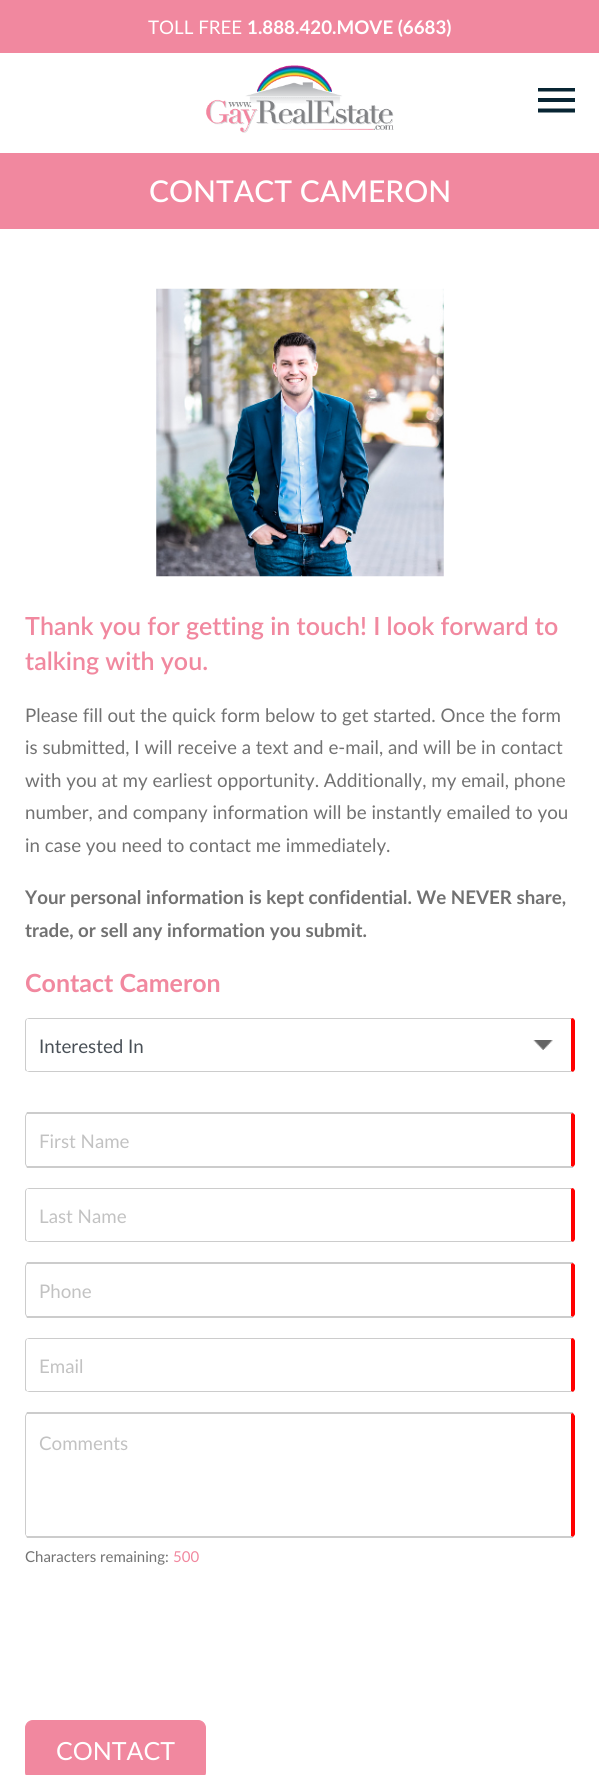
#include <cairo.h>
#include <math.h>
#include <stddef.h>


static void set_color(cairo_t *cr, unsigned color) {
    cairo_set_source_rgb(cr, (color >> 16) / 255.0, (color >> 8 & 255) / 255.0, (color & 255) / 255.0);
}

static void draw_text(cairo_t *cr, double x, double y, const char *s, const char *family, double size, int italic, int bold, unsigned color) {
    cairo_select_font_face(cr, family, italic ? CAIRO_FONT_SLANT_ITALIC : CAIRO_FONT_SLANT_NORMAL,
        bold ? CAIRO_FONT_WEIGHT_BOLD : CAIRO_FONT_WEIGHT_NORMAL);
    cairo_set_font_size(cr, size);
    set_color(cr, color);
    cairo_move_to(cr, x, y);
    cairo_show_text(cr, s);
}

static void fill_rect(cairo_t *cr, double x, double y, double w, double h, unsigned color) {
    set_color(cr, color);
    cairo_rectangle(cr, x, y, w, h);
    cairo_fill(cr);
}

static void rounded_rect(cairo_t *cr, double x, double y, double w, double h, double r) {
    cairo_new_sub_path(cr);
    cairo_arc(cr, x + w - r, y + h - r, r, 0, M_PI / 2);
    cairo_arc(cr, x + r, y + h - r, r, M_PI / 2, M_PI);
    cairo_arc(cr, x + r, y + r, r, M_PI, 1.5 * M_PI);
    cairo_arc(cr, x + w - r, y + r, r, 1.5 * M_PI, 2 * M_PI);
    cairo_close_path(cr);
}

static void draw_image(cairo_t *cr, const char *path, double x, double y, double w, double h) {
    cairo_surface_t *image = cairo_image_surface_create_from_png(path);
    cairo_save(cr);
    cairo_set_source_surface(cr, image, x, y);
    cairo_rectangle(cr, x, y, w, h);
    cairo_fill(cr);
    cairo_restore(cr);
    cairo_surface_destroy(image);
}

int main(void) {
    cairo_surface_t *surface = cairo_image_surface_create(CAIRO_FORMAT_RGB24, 599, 1775);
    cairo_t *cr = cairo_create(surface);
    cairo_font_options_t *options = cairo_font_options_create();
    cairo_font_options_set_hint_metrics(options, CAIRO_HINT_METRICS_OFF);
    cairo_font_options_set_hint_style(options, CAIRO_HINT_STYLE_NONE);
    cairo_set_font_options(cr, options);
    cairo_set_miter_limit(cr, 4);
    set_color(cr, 0xFFFFFF);
    cairo_paint(cr);
    fill_rect(cr, 0, 0, 599, 53, 0xF1889F);
    draw_text(cr, 148, 34, "TOLL FREE", "Lato", 18.75, 0, 0, 0xFFFFFF);
    draw_text(cr, 247, 34, "1.888.420.MOVE (6683)", "Lato", 18.75, 0, 1, 0xFFFFFF);
    draw_image(cr, "assets/img1.png", 206, 65, 188, 68);
    cairo_save(cr);
    cairo_rectangle(cr, 538, 88, 37, 25);
    cairo_clip(cr);
    set_color(cr, 0x082533);
    cairo_new_path(cr);
    cairo_move_to(cr, 537.5, 112.5);
    cairo_line_to(cr, 575, 112.5);
    cairo_line_to(cr, 575, 108.5);
    cairo_line_to(cr, 537.5, 108.5);
    cairo_close_path(cr);
    cairo_move_to(cr, 537.5, 102);
    cairo_line_to(cr, 575, 102);
    cairo_line_to(cr, 575, 98);
    cairo_line_to(cr, 537.5, 98);
    cairo_close_path(cr);
    cairo_move_to(cr, 537.5, 87.5);
    cairo_line_to(cr, 537.5, 91.5);
    cairo_line_to(cr, 575, 91.5);
    cairo_line_to(cr, 575, 87.5);
    cairo_close_path(cr);
    cairo_fill(cr);
    cairo_restore(cr);
    fill_rect(cr, 0, 153, 599, 76, 0xF1889F);
    draw_text(cr, 149, 202, "CONTACT CAMERON", "Lato Medium", 30, 0, 0, 0xFFFFFF);
    draw_image(cr, "assets/img2.png", 156, 288, 288, 289);
    draw_text(cr, 25, 635, "Thank you for getting in touch! I look forward to", "Lato SemiBold", 25, 0, 0, 0xF1889F);
    draw_text(cr, 25, 670, "talking with you.", "Lato SemiBold", 25, 0, 0, 0xF1889F);
    draw_text(cr, 25, 722, "Please fill out the quick form below to get started. Once the form", "Lato", 18.75, 0, 0, 0x727272);
    draw_text(cr, 25, 754, "is submitted, I will receive a text and e-mail, and will be in contact", "Lato", 18.75, 0, 0, 0x727272);
    draw_text(cr, 25, 787, "with you at my earliest opportunity. Additionally, my email, phone", "Lato", 18.75, 0, 0, 0x727272);
    draw_text(cr, 25, 819, "number, and company information will be instantly emailed to you", "Lato", 18.75, 0, 0, 0x727272);
    draw_text(cr, 25, 852, "in case you need to contact me immediately.", "Lato", 18.75, 0, 0, 0x727272);
    draw_text(cr, 25, 904, "Your personal information is kept confidential. We NEVER share,", "Lato", 18.75, 0, 1, 0x727272);
    draw_text(cr, 25, 937, "trade, or sell any information you submit.", "Lato", 18.75, 0, 1, 0x727272);
    draw_text(cr, 25, 992, "Contact Cameron", "Lato", 25, 0, 1, 0xF1889F);
    draw_image(cr, "assets/img3.png", 533, 1040, 20, 10);
    set_color(cr, 0xCCCCCC);
    cairo_new_path(cr);
    cairo_move_to(cr, 29, 1018);
    cairo_line_to(cr, 26, 1019);
    cairo_line_to(cr, 27, 1019);
    cairo_line_to(cr, 29, 1019);
    cairo_line_to(cr, 570, 1019);
    cairo_line_to(cr, 573, 1018);
    cairo_line_to(cr, 571, 1018);
    cairo_close_path(cr);
    cairo_fill(cr);
    set_color(cr, 0xFF0000);
    cairo_new_path(cr);
    cairo_move_to(cr, 573, 1018);
    cairo_curve_to(cr, 574, 1019, 575, 1020, 575, 1021);
    cairo_line_to(cr, 575, 1069);
    cairo_curve_to(cr, 575, 1070, 574, 1071, 573, 1072);
    cairo_line_to(cr, 570, 1071);
    cairo_line_to(cr, 571, 1071);
    cairo_line_to(cr, 571, 1019);
    cairo_line_to(cr, 570, 1019);
    cairo_close_path(cr);
    cairo_fill(cr);
    set_color(cr, 0xCCCCCC);
    cairo_new_path(cr);
    cairo_move_to(cr, 573, 1072);
    cairo_line_to(cr, 29, 1072);
    cairo_line_to(cr, 26, 1071);
    cairo_line_to(cr, 27, 1071);
    cairo_line_to(cr, 29, 1071);
    cairo_line_to(cr, 570, 1071);
    cairo_close_path(cr);
    cairo_fill(cr);
    cairo_new_path(cr);
    cairo_move_to(cr, 25, 1021);
    cairo_line_to(cr, 25, 1070);
    cairo_line_to(cr, 26, 1071);
    cairo_line_to(cr, 27, 1071);
    cairo_line_to(cr, 26, 1069);
    cairo_line_to(cr, 26, 1021);
    cairo_line_to(cr, 27, 1019);
    cairo_line_to(cr, 26, 1019);
    cairo_close_path(cr);
    cairo_fill(cr);
    draw_text(cr, 39, 1053, "Interested In", "Lato", 18.75, 0, 0, 0x495057);
    set_color(cr, 0xCCCCCC);
    cairo_new_path(cr);
    cairo_move_to(cr, 29, 1114);
    cairo_line_to(cr, 27, 1114);
    cairo_line_to(cr, 26, 1114);
    cairo_line_to(cr, 27, 1112);
    cairo_line_to(cr, 573, 1112);
    cairo_line_to(cr, 573, 1113);
    cairo_line_to(cr, 570, 1114);
    cairo_close_path(cr);
    cairo_fill(cr);
    set_color(cr, 0xFF0000);
    cairo_new_path(cr);
    cairo_move_to(cr, 575, 1164);
    cairo_line_to(cr, 575, 1115);
    cairo_line_to(cr, 573, 1113);
    cairo_line_to(cr, 570, 1114);
    cairo_line_to(cr, 571, 1114);
    cairo_line_to(cr, 571, 1166);
    cairo_line_to(cr, 570, 1166);
    cairo_line_to(cr, 573, 1167);
    cairo_curve_to(cr, 574, 1166, 575, 1165, 575, 1164);
    cairo_close_path(cr);
    cairo_fill(cr);
    set_color(cr, 0xCCCCCC);
    cairo_new_path(cr);
    cairo_move_to(cr, 27, 1168);
    cairo_line_to(cr, 26, 1166);
    cairo_line_to(cr, 27, 1166);
    cairo_line_to(cr, 29, 1166);
    cairo_line_to(cr, 570, 1166);
    cairo_line_to(cr, 573, 1167);
    cairo_line_to(cr, 573, 1168);
    cairo_close_path(cr);
    cairo_fill(cr);
    cairo_new_path(cr);
    cairo_move_to(cr, 25, 1116);
    cairo_line_to(cr, 25, 1164);
    cairo_line_to(cr, 26, 1166);
    cairo_line_to(cr, 27, 1166);
    cairo_line_to(cr, 26, 1164);
    cairo_line_to(cr, 26, 1116);
    cairo_line_to(cr, 27, 1114);
    cairo_line_to(cr, 26, 1114);
    cairo_close_path(cr);
    cairo_fill(cr);
    draw_text(cr, 39, 1148, "First Name", "Lato", 18.75, 0, 0, 0xC2C2C2);
    set_color(cr, 0xCCCCCC);
    cairo_new_path(cr);
    cairo_move_to(cr, 29, 1188);
    cairo_line_to(cr, 26, 1189);
    cairo_line_to(cr, 27, 1189);
    cairo_line_to(cr, 29, 1189);
    cairo_line_to(cr, 570, 1189);
    cairo_line_to(cr, 573, 1188);
    cairo_line_to(cr, 571, 1188);
    cairo_close_path(cr);
    cairo_fill(cr);
    set_color(cr, 0xFF0000);
    cairo_new_path(cr);
    cairo_move_to(cr, 573, 1188);
    cairo_curve_to(cr, 574, 1189, 575, 1190, 575, 1191);
    cairo_line_to(cr, 575, 1239);
    cairo_curve_to(cr, 575, 1240, 574, 1241, 573, 1242);
    cairo_line_to(cr, 570, 1241);
    cairo_line_to(cr, 571, 1241);
    cairo_line_to(cr, 571, 1189);
    cairo_line_to(cr, 570, 1189);
    cairo_close_path(cr);
    cairo_fill(cr);
    set_color(cr, 0xCCCCCC);
    cairo_new_path(cr);
    cairo_move_to(cr, 573, 1242);
    cairo_line_to(cr, 29, 1242);
    cairo_line_to(cr, 26, 1241);
    cairo_line_to(cr, 27, 1241);
    cairo_line_to(cr, 29, 1241);
    cairo_line_to(cr, 570, 1241);
    cairo_close_path(cr);
    cairo_fill(cr);
    cairo_new_path(cr);
    cairo_move_to(cr, 25, 1191);
    cairo_line_to(cr, 25, 1240);
    cairo_line_to(cr, 26, 1241);
    cairo_line_to(cr, 27, 1241);
    cairo_line_to(cr, 26, 1239);
    cairo_line_to(cr, 26, 1191);
    cairo_line_to(cr, 27, 1189);
    cairo_line_to(cr, 26, 1189);
    cairo_close_path(cr);
    cairo_fill(cr);
    draw_text(cr, 39, 1223, "Last Name", "Lato", 18.75, 0, 0, 0xC2C2C2);
    set_color(cr, 0xCCCCCC);
    cairo_new_path(cr);
    cairo_move_to(cr, 29, 1264);
    cairo_line_to(cr, 27, 1264);
    cairo_line_to(cr, 26, 1264);
    cairo_line_to(cr, 27, 1262);
    cairo_line_to(cr, 573, 1262);
    cairo_line_to(cr, 573, 1263);
    cairo_line_to(cr, 570, 1264);
    cairo_close_path(cr);
    cairo_fill(cr);
    set_color(cr, 0xFF0000);
    cairo_new_path(cr);
    cairo_move_to(cr, 575, 1314);
    cairo_line_to(cr, 575, 1265);
    cairo_line_to(cr, 573, 1263);
    cairo_line_to(cr, 570, 1264);
    cairo_line_to(cr, 571, 1264);
    cairo_line_to(cr, 571, 1316);
    cairo_line_to(cr, 570, 1316);
    cairo_line_to(cr, 573, 1317);
    cairo_curve_to(cr, 574, 1316, 575, 1315, 575, 1314);
    cairo_close_path(cr);
    cairo_fill(cr);
    set_color(cr, 0xCCCCCC);
    cairo_new_path(cr);
    cairo_move_to(cr, 27, 1318);
    cairo_line_to(cr, 26, 1316);
    cairo_line_to(cr, 27, 1316);
    cairo_line_to(cr, 29, 1316);
    cairo_line_to(cr, 570, 1316);
    cairo_line_to(cr, 573, 1317);
    cairo_line_to(cr, 573, 1318);
    cairo_close_path(cr);
    cairo_fill(cr);
    cairo_new_path(cr);
    cairo_move_to(cr, 25, 1266);
    cairo_line_to(cr, 25, 1314);
    cairo_line_to(cr, 26, 1316);
    cairo_line_to(cr, 27, 1316);
    cairo_line_to(cr, 26, 1314);
    cairo_line_to(cr, 26, 1266);
    cairo_line_to(cr, 27, 1264);
    cairo_line_to(cr, 26, 1264);
    cairo_close_path(cr);
    cairo_fill(cr);
    draw_text(cr, 39, 1298, "Phone", "Lato", 18.75, 0, 0, 0xC2C2C2);
    set_color(cr, 0xCCCCCC);
    cairo_new_path(cr);
    cairo_move_to(cr, 29, 1338);
    cairo_line_to(cr, 26, 1339);
    cairo_line_to(cr, 27, 1339);
    cairo_line_to(cr, 29, 1339);
    cairo_line_to(cr, 570, 1339);
    cairo_line_to(cr, 573, 1338);
    cairo_line_to(cr, 571, 1338);
    cairo_close_path(cr);
    cairo_fill(cr);
    set_color(cr, 0xFF0000);
    cairo_new_path(cr);
    cairo_move_to(cr, 573, 1338);
    cairo_curve_to(cr, 574, 1339, 575, 1340, 575, 1341);
    cairo_line_to(cr, 575, 1389);
    cairo_curve_to(cr, 575, 1390, 574, 1391, 573, 1392);
    cairo_line_to(cr, 570, 1391);
    cairo_line_to(cr, 571, 1391);
    cairo_line_to(cr, 571, 1339);
    cairo_line_to(cr, 570, 1339);
    cairo_close_path(cr);
    cairo_fill(cr);
    set_color(cr, 0xCCCCCC);
    cairo_new_path(cr);
    cairo_move_to(cr, 573, 1392);
    cairo_line_to(cr, 29, 1392);
    cairo_line_to(cr, 26, 1391);
    cairo_line_to(cr, 27, 1391);
    cairo_line_to(cr, 29, 1391);
    cairo_line_to(cr, 570, 1391);
    cairo_close_path(cr);
    cairo_fill(cr);
    cairo_new_path(cr);
    cairo_move_to(cr, 25, 1341);
    cairo_line_to(cr, 25, 1390);
    cairo_line_to(cr, 26, 1391);
    cairo_line_to(cr, 27, 1391);
    cairo_line_to(cr, 26, 1389);
    cairo_line_to(cr, 26, 1341);
    cairo_line_to(cr, 27, 1339);
    cairo_line_to(cr, 26, 1339);
    cairo_close_path(cr);
    cairo_fill(cr);
    draw_text(cr, 39, 1373, "Email", "Lato", 18.75, 0, 0, 0xC2C2C2);
    set_color(cr, 0xCCCCCC);
    cairo_new_path(cr);
    cairo_move_to(cr, 29, 1414);
    cairo_line_to(cr, 27, 1414);
    cairo_line_to(cr, 26, 1414);
    cairo_line_to(cr, 27, 1412);
    cairo_line_to(cr, 573, 1412);
    cairo_line_to(cr, 573, 1413);
    cairo_line_to(cr, 570, 1414);
    cairo_close_path(cr);
    cairo_fill(cr);
    set_color(cr, 0xFF0000);
    cairo_new_path(cr);
    cairo_move_to(cr, 575, 1534);
    cairo_line_to(cr, 575, 1416);
    cairo_line_to(cr, 573, 1413);
    cairo_line_to(cr, 570, 1414);
    cairo_line_to(cr, 571, 1414);
    cairo_line_to(cr, 571, 1536);
    cairo_line_to(cr, 570, 1536);
    cairo_line_to(cr, 573, 1537);
    cairo_curve_to(cr, 574, 1536, 575, 1535, 575, 1534);
    cairo_close_path(cr);
    cairo_fill(cr);
    set_color(cr, 0xCCCCCC);
    cairo_new_path(cr);
    cairo_move_to(cr, 27, 1538);
    cairo_line_to(cr, 26, 1536);
    cairo_line_to(cr, 27, 1536);
    cairo_line_to(cr, 29, 1536);
    cairo_line_to(cr, 570, 1536);
    cairo_line_to(cr, 573, 1537);
    cairo_line_to(cr, 573, 1538);
    cairo_close_path(cr);
    cairo_fill(cr);
    cairo_new_path(cr);
    cairo_move_to(cr, 25, 1416);
    cairo_line_to(cr, 25, 1534);
    cairo_line_to(cr, 26, 1536);
    cairo_line_to(cr, 27, 1536);
    cairo_line_to(cr, 26, 1535);
    cairo_line_to(cr, 26, 1455);
    cairo_line_to(cr, 26, 1416);
    cairo_line_to(cr, 27, 1414);
    cairo_line_to(cr, 26, 1414);
    cairo_close_path(cr);
    cairo_fill(cr);
    draw_text(cr, 39, 1450, "Comments", "Lato", 18.75, 0, 0, 0xC2C2C2);
    draw_text(cr, 25, 1562, "Characters remaining:", "Lato", 15, 0, 0, 0x727272);
    draw_text(cr, 173, 1562, "500", "Lato", 15, 0, 0, 0xF1889F);
    rounded_rect(cr, 25.5, 1720.5, 180, 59, 7.5);
    cairo_fill_preserve(cr);
    cairo_set_line_width(cr, 1);
    cairo_stroke(cr);
    draw_text(cr, 56, 1760, "CONTACT", "Lato", 25, 0, 0, 0xFFFFFF);
    cairo_surface_write_to_png(surface, "output.png");
    cairo_font_options_destroy(options);
    cairo_destroy(cr);
    cairo_surface_destroy(surface);
    return 0;
}
